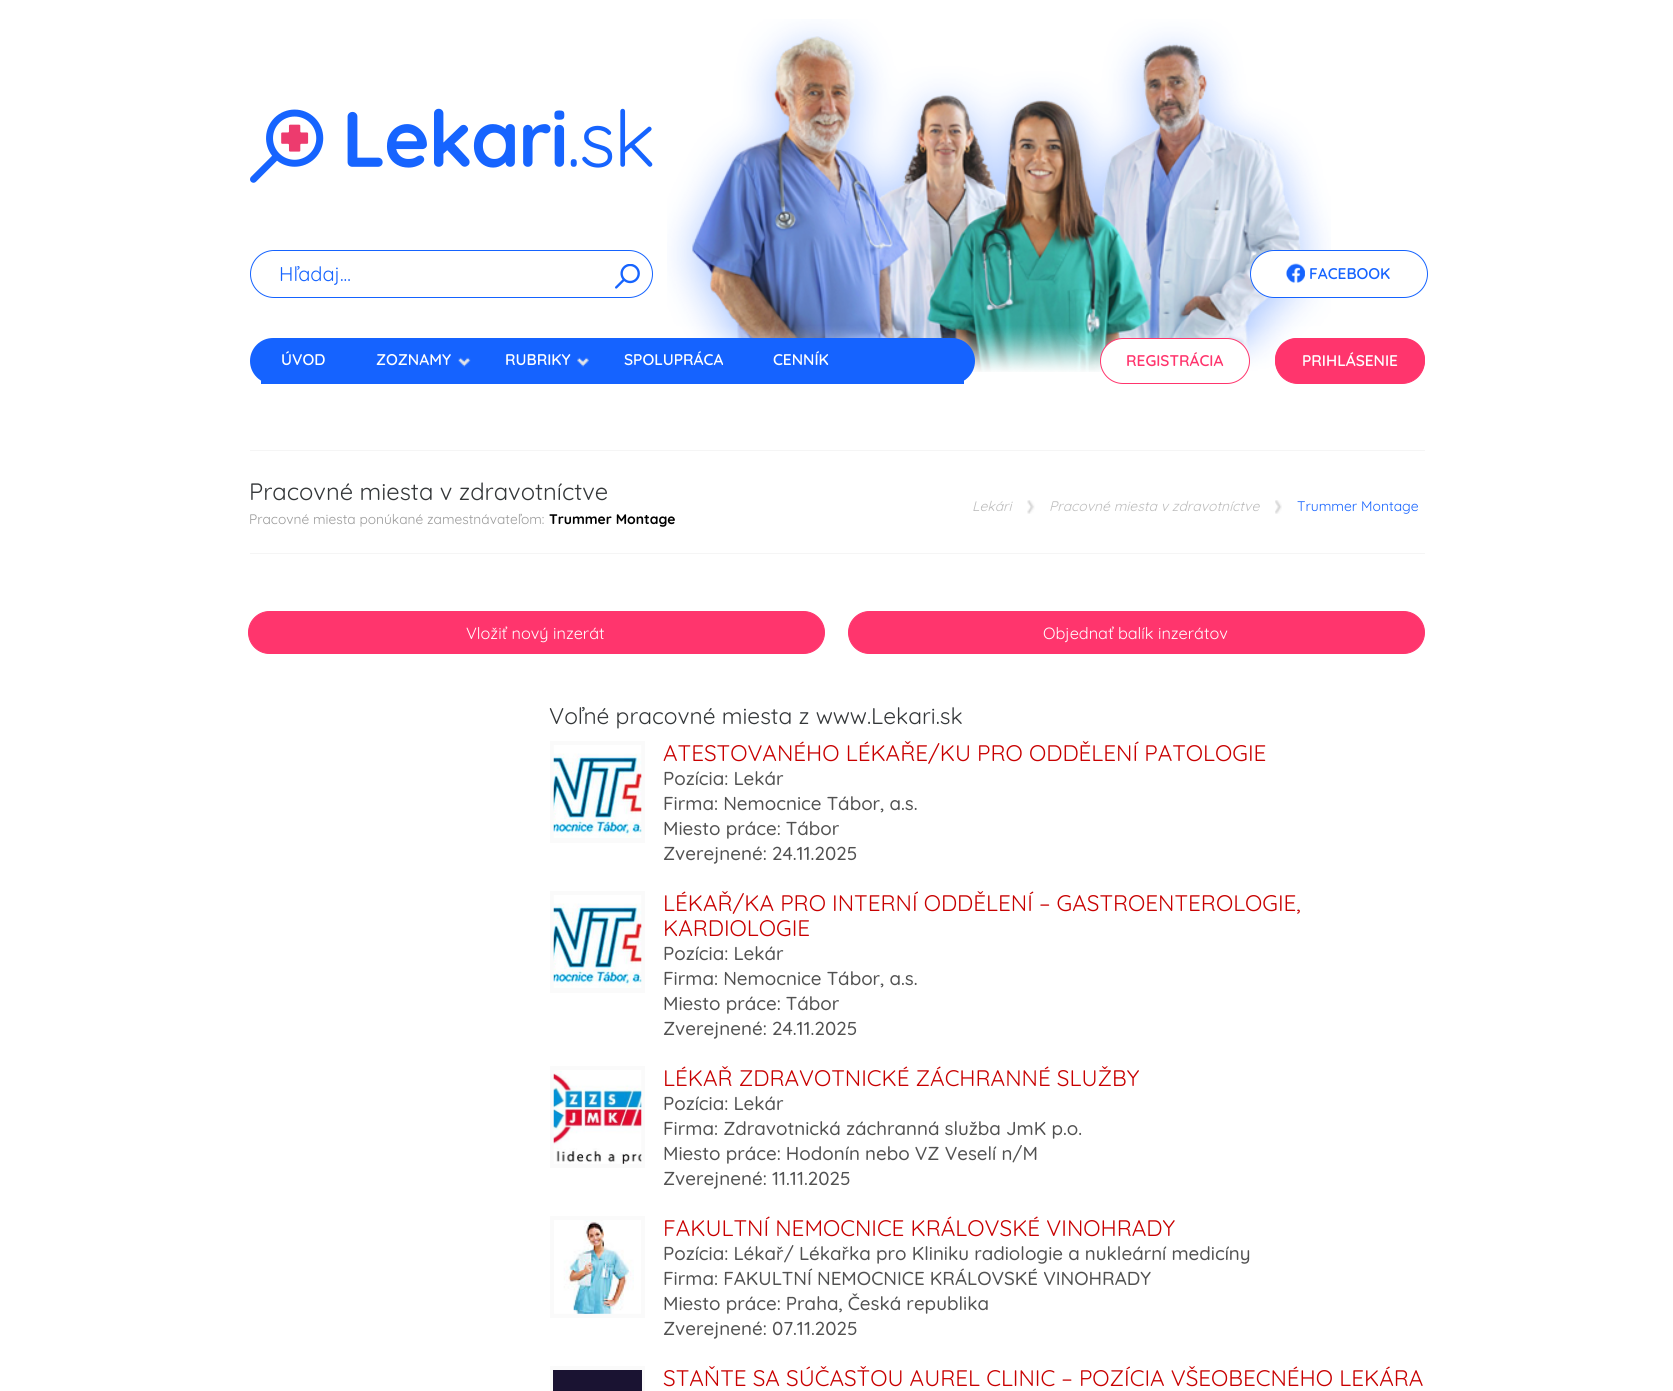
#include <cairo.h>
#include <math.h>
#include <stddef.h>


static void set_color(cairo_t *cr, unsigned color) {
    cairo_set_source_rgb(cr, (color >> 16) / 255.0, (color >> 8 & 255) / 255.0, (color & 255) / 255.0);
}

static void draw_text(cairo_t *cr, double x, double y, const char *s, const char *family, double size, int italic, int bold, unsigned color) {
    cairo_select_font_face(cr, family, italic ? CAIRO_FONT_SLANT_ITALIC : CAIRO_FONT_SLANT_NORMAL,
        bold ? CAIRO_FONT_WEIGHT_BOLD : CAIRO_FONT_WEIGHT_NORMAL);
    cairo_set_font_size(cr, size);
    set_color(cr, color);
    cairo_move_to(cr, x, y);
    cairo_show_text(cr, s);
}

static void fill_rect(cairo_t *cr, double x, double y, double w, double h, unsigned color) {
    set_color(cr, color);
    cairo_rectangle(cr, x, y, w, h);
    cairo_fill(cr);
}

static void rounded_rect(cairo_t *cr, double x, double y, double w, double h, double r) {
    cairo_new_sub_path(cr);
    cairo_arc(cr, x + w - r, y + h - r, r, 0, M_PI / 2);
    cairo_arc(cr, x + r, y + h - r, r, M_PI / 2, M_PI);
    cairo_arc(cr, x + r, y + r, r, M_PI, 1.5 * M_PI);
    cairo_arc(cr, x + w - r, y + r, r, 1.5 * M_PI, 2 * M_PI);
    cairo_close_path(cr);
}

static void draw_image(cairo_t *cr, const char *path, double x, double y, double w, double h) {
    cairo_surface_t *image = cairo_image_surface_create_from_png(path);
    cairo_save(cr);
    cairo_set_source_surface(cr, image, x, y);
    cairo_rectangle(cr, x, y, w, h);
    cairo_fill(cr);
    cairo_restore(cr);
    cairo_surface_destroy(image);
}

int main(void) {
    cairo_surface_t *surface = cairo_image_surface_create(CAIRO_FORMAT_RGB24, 1673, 1391);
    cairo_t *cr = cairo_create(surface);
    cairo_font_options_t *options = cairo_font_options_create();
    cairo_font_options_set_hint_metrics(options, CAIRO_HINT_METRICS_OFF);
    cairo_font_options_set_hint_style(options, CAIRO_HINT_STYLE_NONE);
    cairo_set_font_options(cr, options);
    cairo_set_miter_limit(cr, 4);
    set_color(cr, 0xFFFFFF);
    cairo_paint(cr);
    draw_image(cr, "assets/img1.png", 250, 108, 403, 75);
    draw_image(cr, "assets/img2.png", 667, 19, 664, 353);
    rounded_rect(cr, 250.5, 250.5, 402, 47, 23.5);
    set_color(cr, 0x1563FF);
    cairo_set_line_width(cr, 1);
    cairo_stroke(cr);
    set_color(cr, 0xFFFFFF);
    cairo_new_path(cr);
    cairo_move_to(cr, 274, 251);
    cairo_line_to(cr, 476, 251);
    cairo_line_to(cr, 476, 296);
    cairo_line_to(cr, 274, 296);
    cairo_curve_to(cr, 272, 296, 270, 294, 270, 292);
    cairo_line_to(cr, 270, 255);
    cairo_curve_to(cr, 270, 253, 272, 251, 274, 251);
    cairo_close_path(cr);
    cairo_fill(cr);
    draw_text(cr, 279, 281, "Hľadaj...", "Quicksand", 20, 0, 0, 0x1563FF);
    draw_image(cr, "assets/img3.png", 615, 264, 25, 25);
    set_color(cr, 0xFFFFFF);
    rounded_rect(cr, 1250.5, 250.5, 177, 47, 23.5);
    cairo_fill_preserve(cr);
    set_color(cr, 0x1563FF);
    cairo_stroke(cr);
    draw_image(cr, "assets/img4.png", 1286, 263, 19, 20);
    draw_text(cr, 1309, 279, "FACEBOOK", "Quicksand SemiBold", 15.5, 0, 0, 0x1563FF);
    rounded_rect(cr, 250, 338, 725, 46, 23);
    cairo_fill(cr);
    fill_rect(cr, 261, 380, 703, 4, 0x1563FF);
    draw_text(cr, 281, 365, "ÚVOD", "Quicksand SemiBold", 15.5, 0, 0, 0xFFFFFF);
    draw_text(cr, 376, 365, "ZOZNAMY", "Quicksand SemiBold", 15.5, 0, 0, 0xFFFFFF);
    draw_image(cr, "assets/img5.png", 458, 357, 13, 10);
    draw_text(cr, 505, 365, "RUBRIKY", "Quicksand SemiBold", 15.5, 0, 0, 0xFFFFFF);
    draw_image(cr, "assets/img6.png", 577, 357, 12, 10);
    draw_text(cr, 624, 365, "SPOLUPRÁCA", "Quicksand SemiBold", 15.5, 0, 0, 0xFFFFFF);
    draw_text(cr, 773, 365, "CENNÍK", "Quicksand SemiBold", 15.5, 0, 0, 0xFFFFFF);
    rounded_rect(cr, 1100.5, 338.5, 149, 45, 22.5);
    cairo_fill_preserve(cr);
    set_color(cr, 0xFF356D);
    cairo_stroke(cr);
    draw_text(cr, 1126, 366, "REGISTRÁCIA", "Quicksand SemiBold", 15.5, 0, 0, 0xFF356D);
    rounded_rect(cr, 1275, 338, 150, 43, 21.5);
    cairo_fill(cr);
    rounded_rect(cr, 1275.5, 338.5, 149, 45, 22.5);
    cairo_fill_preserve(cr);
    cairo_stroke(cr);
    draw_text(cr, 1302, 366, "PRIHLÁSENIE", "Quicksand SemiBold", 15.5, 0, 0, 0xFFFFFF);
    fill_rect(cr, 250, 450, 1175, 1, 0xF5F5F5);
    fill_rect(cr, 250, 553, 1175, 1, 0xF5F5F5);
    draw_text(cr, 249, 500, "Pracovné miesta v zdravotníctve", "Quicksand", 23.75, 0, 0, 0x343739);
    draw_text(cr, 249, 524, "Pracovné miesta ponúkané zamestnávateľom:", "Quicksand", 13.75, 0, 0, 0x999999);
    draw_text(cr, 549, 524, "Trummer Montage", "Quicksand", 13.9, 0, 1, 0x000000);
    draw_image(cr, "assets/img7.png", 1027, 500, 8, 14);
    draw_text(cr, 972, 511, "Lekári", "Quicksand", 13.9, 1, 0, 0xBDBDBD);
    draw_image(cr, "assets/img8.png", 1275, 500, 7, 14);
    draw_text(cr, 1049, 511, "Pracovné miesta v zdravotníctve", "Quicksand", 13.9, 1, 0, 0xBDBDBD);
    draw_text(cr, 1297, 511, "Trummer Montage", "Quicksand", 13.9, 0, 0, 0x1563FF);
    set_color(cr, 0xFF356D);
    rounded_rect(cr, 248.5, 611.5, 576, 42, 21);
    cairo_fill_preserve(cr);
    cairo_stroke(cr);
    draw_text(cr, 466, 639, "Vložiť nový inzerát", "Quicksand", 16.25, 0, 0, 0xFFFFFF);
    set_color(cr, 0xFF356D);
    rounded_rect(cr, 848.5, 611.5, 576, 42, 21);
    cairo_fill_preserve(cr);
    cairo_stroke(cr);
    draw_text(cr, 1043, 639, "Objednať balík inzerátov", "Quicksand", 16.25, 0, 0, 0xFFFFFF);
    draw_text(cr, 549, 724, "Voľné pracovné miesta z www.Lekari.sk", "Quicksand", 22.75, 0, 0, 0x343739);
    fill_rect(cr, 550, 741, 95, 102, 0xFAFAFA);
    draw_image(cr, "assets/img9.png", 553, 745, 89, 93);
    draw_text(cr, 663, 761, "ATESTOVANÉHO LÉKAŘE/KU PRO ODDĚLENÍ PATOLOGIE", "Quicksand", 22.5, 0, 0, 0xC80000);
    draw_text(cr, 663, 785, "Pozícia: Lekár", "Quicksand Medium", 18.75, 0, 0, 0x515151);
    draw_text(cr, 663, 810, "Firma: Nemocnice Tábor, a.s.", "Quicksand Medium", 18.75, 0, 0, 0x515151);
    draw_text(cr, 663, 835, "Miesto práce: Tábor", "Quicksand Medium", 18.75, 0, 0, 0x515151);
    draw_text(cr, 663, 860, "Zverejnené: 24.11.2025", "Quicksand Medium", 18.75, 0, 0, 0x515151);
    fill_rect(cr, 550, 891, 95, 102, 0xFAFAFA);
    draw_image(cr, "assets/img9.png", 553, 895, 89, 93);
    draw_text(cr, 663, 911, "LÉKAŘ/KA PRO INTERNÍ ODDĚLENÍ – GASTROENTEROLOGIE,", "Quicksand", 22.5, 0, 0, 0xC80000);
    draw_text(cr, 663, 936, "KARDIOLOGIE", "Quicksand", 22.5, 0, 0, 0xC80000);
    draw_text(cr, 663, 960, "Pozícia: Lekár", "Quicksand Medium", 18.75, 0, 0, 0x515151);
    draw_text(cr, 663, 985, "Firma: Nemocnice Tábor, a.s.", "Quicksand Medium", 18.75, 0, 0, 0x515151);
    draw_text(cr, 663, 1010, "Miesto práce: Tábor", "Quicksand Medium", 18.75, 0, 0, 0x515151);
    draw_text(cr, 663, 1035, "Zverejnené: 24.11.2025", "Quicksand Medium", 18.75, 0, 0, 0x515151);
    fill_rect(cr, 550, 1066, 95, 102, 0xFAFAFA);
    draw_image(cr, "assets/img10.png", 553, 1070, 89, 94);
    draw_text(cr, 663, 1086, "LÉKAŘ ZDRAVOTNICKÉ ZÁCHRANNÉ SLUŽBY", "Quicksand", 22.5, 0, 0, 0xC80000);
    draw_text(cr, 663, 1110, "Pozícia: Lekár", "Quicksand Medium", 18.75, 0, 0, 0x515151);
    draw_text(cr, 663, 1135, "Firma: Zdravotnická záchranná služba JmK p.o.", "Quicksand Medium", 18.75, 0, 0, 0x515151);
    draw_text(cr, 663, 1160, "Miesto práce: Hodonín nebo VZ Veselí n/M", "Quicksand Medium", 18.75, 0, 0, 0x515151);
    draw_text(cr, 663, 1185, "Zverejnené: 11.11.2025", "Quicksand Medium", 18.75, 0, 0, 0x515151);
    fill_rect(cr, 550, 1216, 95, 102, 0xFAFAFA);
    draw_image(cr, "assets/img11.png", 554, 1220, 87, 94);
    draw_text(cr, 663, 1236, "FAKULTNÍ NEMOCNICE KRÁLOVSKÉ VINOHRADY", "Quicksand", 22.5, 0, 0, 0xC80000);
    draw_text(cr, 663, 1260, "Pozícia: Lékař/ Lékařka pro Kliniku radiologie a nukleární medicíny", "Quicksand Medium", 18.75, 0, 0, 0x515151);
    draw_text(cr, 663, 1285, "Firma: FAKULTNÍ NEMOCNICE KRÁLOVSKÉ VINOHRADY", "Quicksand Medium", 18.75, 0, 0, 0x515151);
    draw_text(cr, 663, 1310, "Miesto práce: Praha, Česká republika", "Quicksand Medium", 18.75, 0, 0, 0x515151);
    draw_text(cr, 663, 1335, "Zverejnené: 07.11.2025", "Quicksand Medium", 18.75, 0, 0, 0x515151);
    fill_rect(cr, 550, 1366, 95, 25, 0xFAFAFA);
    fill_rect(cr, 553, 1370, 89, 21, 0x1A1332);
    draw_text(cr, 663, 1386, "STAŇTE SA SÚČASŤOU AUREL CLINIC – POZÍCIA VŠEOBECNÉHO LEKÁRA", "Quicksand", 22.5, 0, 0, 0xC80000);
    cairo_surface_write_to_png(surface, "output.png");
    cairo_font_options_destroy(options);
    cairo_destroy(cr);
    cairo_surface_destroy(surface);
    return 0;
}
